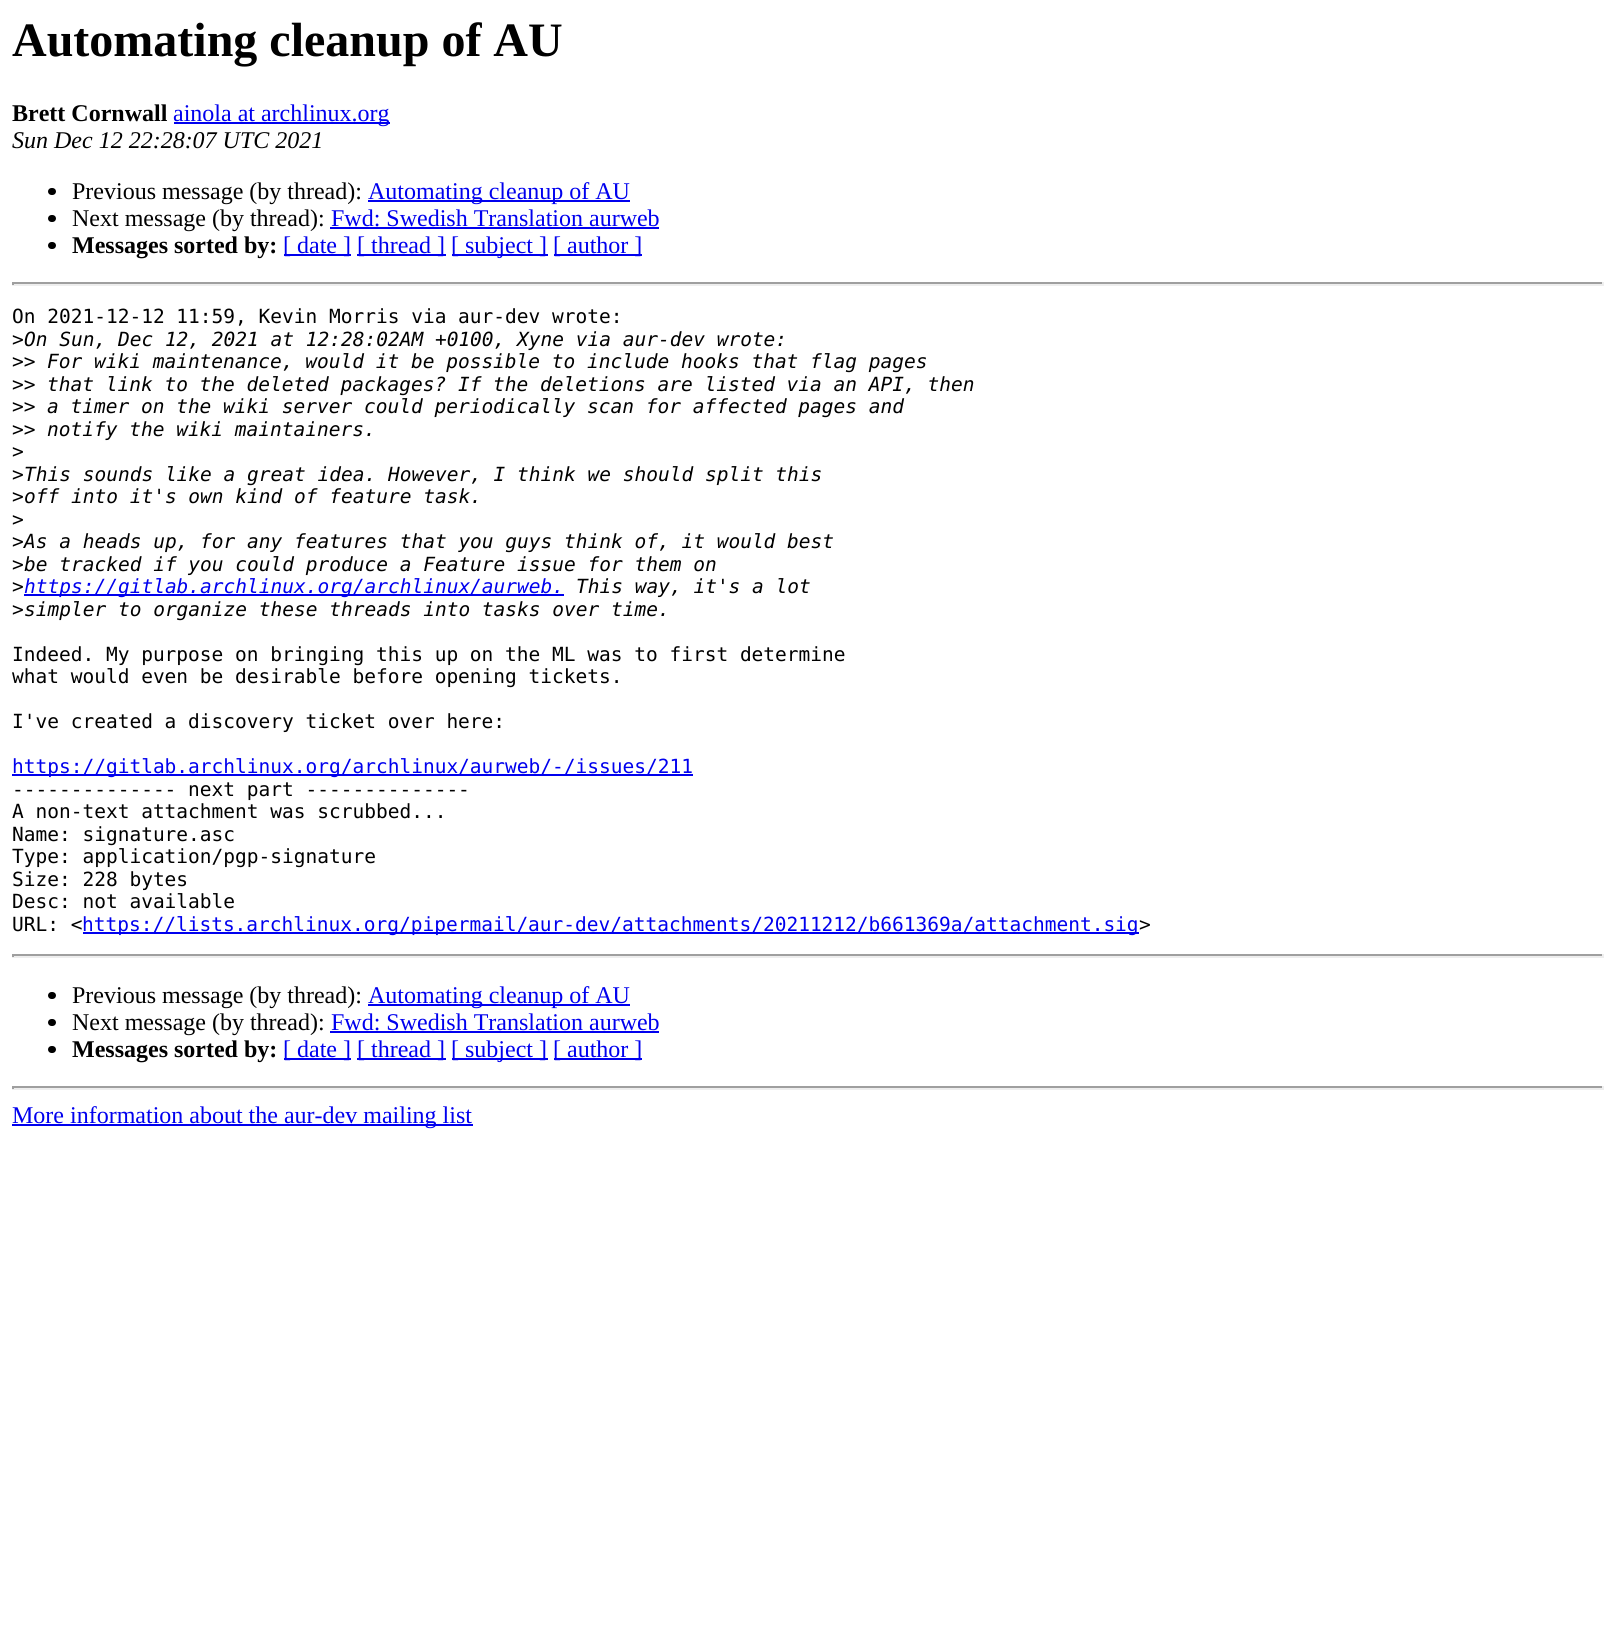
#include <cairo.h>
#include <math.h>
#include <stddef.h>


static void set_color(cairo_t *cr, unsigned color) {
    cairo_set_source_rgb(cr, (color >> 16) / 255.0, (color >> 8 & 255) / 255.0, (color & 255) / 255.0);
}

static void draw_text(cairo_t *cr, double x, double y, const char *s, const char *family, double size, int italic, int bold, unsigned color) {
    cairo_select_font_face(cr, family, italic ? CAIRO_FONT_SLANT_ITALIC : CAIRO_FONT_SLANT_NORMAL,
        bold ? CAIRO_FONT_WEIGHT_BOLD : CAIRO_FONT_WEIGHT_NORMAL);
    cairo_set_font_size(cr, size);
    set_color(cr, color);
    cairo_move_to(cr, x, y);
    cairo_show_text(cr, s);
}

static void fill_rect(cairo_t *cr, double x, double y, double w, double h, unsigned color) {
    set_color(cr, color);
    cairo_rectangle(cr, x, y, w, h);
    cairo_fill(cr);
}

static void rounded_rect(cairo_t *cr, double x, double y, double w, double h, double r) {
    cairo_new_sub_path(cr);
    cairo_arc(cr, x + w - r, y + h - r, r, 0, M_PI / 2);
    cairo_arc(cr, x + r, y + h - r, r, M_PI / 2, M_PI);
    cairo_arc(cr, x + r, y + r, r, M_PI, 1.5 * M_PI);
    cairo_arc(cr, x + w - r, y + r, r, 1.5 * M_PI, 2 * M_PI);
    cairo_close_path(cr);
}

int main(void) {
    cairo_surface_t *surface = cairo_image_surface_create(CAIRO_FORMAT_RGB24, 1615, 1629);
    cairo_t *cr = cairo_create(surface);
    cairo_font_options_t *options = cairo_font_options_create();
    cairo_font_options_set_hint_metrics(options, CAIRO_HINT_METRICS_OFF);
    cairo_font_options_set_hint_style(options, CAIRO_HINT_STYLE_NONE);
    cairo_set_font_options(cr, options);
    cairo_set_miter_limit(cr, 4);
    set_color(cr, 0xFFFFFF);
    cairo_paint(cr);
    draw_text(cr, 12, 56, "Automating cleanup of AU", "Liberation Serif", 48, 0, 1, 0x000000);
    draw_text(cr, 12, 121, "Brett Cornwall", "Liberation Serif", 24, 0, 1, 0x000000);
    fill_rect(cr, 174, 122, 216, 2, 0x0000EE);
    draw_text(cr, 173, 121, "ainola at archlinux.org", "Liberation Serif", 24, 0, 0, 0x0000EE);
    draw_text(cr, 12, 148, "Sun Dec 12 22:28:07 UTC 2021", "Liberation Serif", 24, 1, 0, 0x000000);
    rounded_rect(cr, 48, 188, 8, 7, 3.5);
    cairo_fill(cr);
    draw_text(cr, 72, 199, "Previous message (by thread):", "Liberation Serif", 24, 0, 0, 0x000000);
    fill_rect(cr, 368, 200, 262, 2, 0x0000EE);
    draw_text(cr, 368, 199, "Automating cleanup of AU", "Liberation Serif", 24, 0, 0, 0x0000EE);
    set_color(cr, 0x000000);
    rounded_rect(cr, 48, 215, 8, 7, 3.5);
    cairo_fill(cr);
    draw_text(cr, 72, 226, "Next message (by thread):", "Liberation Serif", 24, 0, 0, 0x000000);
    draw_text(cr, 331, 226, "Fwd: Swedish Translation aurweb", "Liberation Serif", 24, 0, 0, 0x0000EE);
    fill_rect(cr, 330, 227, 329, 2, 0x0000EE);
    set_color(cr, 0x000000);
    rounded_rect(cr, 48, 242, 8, 7, 3.5);
    cairo_fill(cr);
    draw_text(cr, 72, 253, "Messages sorted by:", "Liberation Serif", 24, 0, 1, 0x000000);
    fill_rect(cr, 284, 254, 67, 2, 0x0000EE);
    draw_text(cr, 283, 253, "[ date ]", "Liberation Serif", 24, 0, 0, 0x0000EE);
    fill_rect(cr, 357, 254, 89, 2, 0x0000EE);
    draw_text(cr, 357, 253, "[ thread ]", "Liberation Serif", 24, 0, 0, 0x0000EE);
    fill_rect(cr, 452, 254, 96, 2, 0x0000EE);
    draw_text(cr, 451, 253, "[ subject ]", "Liberation Serif", 24, 0, 0, 0x0000EE);
    fill_rect(cr, 554, 254, 88, 2, 0x0000EE);
    draw_text(cr, 553, 253, "[ author ]", "Liberation Serif", 24, 0, 0, 0x0000EE);
    fill_rect(cr, 12, 282, 1592, 2, 0x9F9F9F);
    fill_rect(cr, 1602, 282, 2, 3, 0xEEEEEE);
    fill_rect(cr, 12, 284, 1592, 2, 0xEEEEEE);
    fill_rect(cr, 12, 282, 2, 3, 0x9F9F9F);
    draw_text(cr, 12, 323, "On 2021-12-12 11:59, Kevin Morris via aur-dev wrote:", "DejaVu Sans Mono", 19.5, 0, 0, 0x000000);
    draw_text(cr, 12, 346, ">", "DejaVu Sans Mono", 19.5, 0, 0, 0x000000);
    draw_text(cr, 24, 346, "On Sun, Dec 12, 2021 at 12:28:02AM +0100, Xyne via aur-dev wrote:", "DejaVu Sans Mono", 19.5, 1, 0, 0x000000);
    draw_text(cr, 12, 368, ">>", "DejaVu Sans Mono", 19.5, 0, 0, 0x000000);
    draw_text(cr, 47, 368, "For wiki maintenance, would it be possible to include hooks that flag pages", "DejaVu Sans Mono", 19.5, 1, 0, 0x000000);
    draw_text(cr, 12, 391, ">>", "DejaVu Sans Mono", 19.5, 0, 0, 0x000000);
    draw_text(cr, 47, 391, "that link to the deleted packages? If the deletions are listed via an API, then", "DejaVu Sans Mono", 19.5, 1, 0, 0x000000);
    draw_text(cr, 12, 413, ">>", "DejaVu Sans Mono", 19.5, 0, 0, 0x000000);
    draw_text(cr, 47, 413, "a timer on the wiki server could periodically scan for affected pages and", "DejaVu Sans Mono", 19.5, 1, 0, 0x000000);
    draw_text(cr, 12, 436, ">>", "DejaVu Sans Mono", 19.5, 0, 0, 0x000000);
    draw_text(cr, 47, 436, "notify the wiki maintainers.", "DejaVu Sans Mono", 19.5, 1, 0, 0x000000);
    draw_text(cr, 12, 458, ">", "DejaVu Sans Mono", 19.5, 0, 0, 0x000000);
    draw_text(cr, 12, 481, ">", "DejaVu Sans Mono", 19.5, 0, 0, 0x000000);
    draw_text(cr, 24, 481, "This sounds like a great idea. However, I think we should split this", "DejaVu Sans Mono", 19.5, 1, 0, 0x000000);
    draw_text(cr, 12, 503, ">", "DejaVu Sans Mono", 19.5, 0, 0, 0x000000);
    draw_text(cr, 24, 503, "off into it's own kind of feature task.", "DejaVu Sans Mono", 19.5, 1, 0, 0x000000);
    draw_text(cr, 12, 526, ">", "DejaVu Sans Mono", 19.5, 0, 0, 0x000000);
    draw_text(cr, 12, 548, ">", "DejaVu Sans Mono", 19.5, 0, 0, 0x000000);
    draw_text(cr, 24, 548, "As a heads up, for any features that you guys think of, it would best", "DejaVu Sans Mono", 19.5, 1, 0, 0x000000);
    draw_text(cr, 12, 571, ">", "DejaVu Sans Mono", 19.5, 0, 0, 0x000000);
    draw_text(cr, 24, 571, "be tracked if you could produce a Feature issue for them on", "DejaVu Sans Mono", 19.5, 1, 0, 0x000000);
    draw_text(cr, 12, 593, ">", "DejaVu Sans Mono", 19.5, 0, 0, 0x000000);
    fill_rect(cr, 24, 594, 540, 2, 0x0000EE);
    draw_text(cr, 24, 593, "https://gitlab.archlinux.org/archlinux/aurweb.", "DejaVu Sans Mono", 19.5, 1, 0, 0x0000EE);
    draw_text(cr, 576, 593, "This way, it's a lot", "DejaVu Sans Mono", 19.5, 1, 0, 0x000000);
    draw_text(cr, 12, 616, ">", "DejaVu Sans Mono", 19.5, 0, 0, 0x000000);
    draw_text(cr, 24, 616, "simpler to organize these threads into tasks over time.", "DejaVu Sans Mono", 19.5, 1, 0, 0x000000);
    draw_text(cr, 12, 661, "Indeed. My purpose on bringing this up on the ML was to first determine", "DejaVu Sans Mono", 19.5, 0, 0, 0x000000);
    draw_text(cr, 12, 683, "what would even be desirable before opening tickets.", "DejaVu Sans Mono", 19.5, 0, 0, 0x000000);
    draw_text(cr, 12, 728, "I've created a discovery ticket over here:", "DejaVu Sans Mono", 19.5, 0, 0, 0x000000);
    fill_rect(cr, 12, 774, 681, 2, 0x0000EE);
    draw_text(cr, 12, 773, "https://gitlab.archlinux.org/archlinux/aurweb/-/issues/211", "DejaVu Sans Mono", 19.5, 0, 0, 0x0000EE);
    draw_text(cr, 12, 796, "-------------- next part --------------", "DejaVu Sans Mono", 19.5, 0, 0, 0x000000);
    draw_text(cr, 12, 818, "A non-text attachment was scrubbed...", "DejaVu Sans Mono", 19.5, 0, 0, 0x000000);
    draw_text(cr, 12, 841, "Name: signature.asc", "DejaVu Sans Mono", 19.5, 0, 0, 0x000000);
    draw_text(cr, 12, 863, "Type: application/pgp-signature", "DejaVu Sans Mono", 19.5, 0, 0, 0x000000);
    draw_text(cr, 12, 886, "Size: 228 bytes", "DejaVu Sans Mono", 19.5, 0, 0, 0x000000);
    draw_text(cr, 12, 908, "Desc: not available", "DejaVu Sans Mono", 19.5, 0, 0, 0x000000);
    draw_text(cr, 12, 931, "URL: <", "DejaVu Sans Mono", 19.5, 0, 0, 0x000000);
    fill_rect(cr, 83, 932, 1056, 2, 0x0000EE);
    draw_text(cr, 82, 931, "https://lists.archlinux.org/pipermail/aur-dev/attachments/20211212/b661369a/attachment.sig", "DejaVu Sans Mono", 19.5, 0, 0, 0x0000EE);
    draw_text(cr, 1139, 931, ">", "DejaVu Sans Mono", 19.5, 0, 0, 0x000000);
    fill_rect(cr, 12, 954, 1592, 2, 0x9F9F9F);
    fill_rect(cr, 1602, 954, 2, 3, 0xEEEEEE);
    fill_rect(cr, 12, 956, 1592, 2, 0xEEEEEE);
    fill_rect(cr, 12, 954, 2, 3, 0x9F9F9F);
    set_color(cr, 0x000000);
    rounded_rect(cr, 48, 992, 8, 7, 3.5);
    cairo_fill(cr);
    draw_text(cr, 72, 1003, "Previous message (by thread):", "Liberation Serif", 24, 0, 0, 0x000000);
    fill_rect(cr, 368, 1004, 262, 2, 0x0000EE);
    draw_text(cr, 368, 1003, "Automating cleanup of AU", "Liberation Serif", 24, 0, 0, 0x0000EE);
    set_color(cr, 0x000000);
    rounded_rect(cr, 48, 1019, 8, 7, 3.5);
    cairo_fill(cr);
    draw_text(cr, 72, 1030, "Next message (by thread):", "Liberation Serif", 24, 0, 0, 0x000000);
    draw_text(cr, 331, 1030, "Fwd: Swedish Translation aurweb", "Liberation Serif", 24, 0, 0, 0x0000EE);
    fill_rect(cr, 330, 1031, 329, 2, 0x0000EE);
    set_color(cr, 0x000000);
    rounded_rect(cr, 48, 1046, 8, 7, 3.5);
    cairo_fill(cr);
    draw_text(cr, 72, 1057, "Messages sorted by:", "Liberation Serif", 24, 0, 1, 0x000000);
    fill_rect(cr, 284, 1058, 67, 2, 0x0000EE);
    draw_text(cr, 283, 1057, "[ date ]", "Liberation Serif", 24, 0, 0, 0x0000EE);
    fill_rect(cr, 357, 1058, 89, 2, 0x0000EE);
    draw_text(cr, 357, 1057, "[ thread ]", "Liberation Serif", 24, 0, 0, 0x0000EE);
    fill_rect(cr, 452, 1058, 96, 2, 0x0000EE);
    draw_text(cr, 451, 1057, "[ subject ]", "Liberation Serif", 24, 0, 0, 0x0000EE);
    fill_rect(cr, 554, 1058, 88, 2, 0x0000EE);
    draw_text(cr, 553, 1057, "[ author ]", "Liberation Serif", 24, 0, 0, 0x0000EE);
    fill_rect(cr, 12, 1086, 1592, 2, 0x9F9F9F);
    fill_rect(cr, 1602, 1086, 2, 3, 0xEEEEEE);
    fill_rect(cr, 12, 1088, 1592, 2, 0xEEEEEE);
    fill_rect(cr, 12, 1086, 2, 3, 0x9F9F9F);
    fill_rect(cr, 12, 1124, 461, 2, 0x0000EE);
    draw_text(cr, 12, 1123, "More information about the aur-dev mailing list", "Liberation Serif", 24, 0, 0, 0x0000EE);
    cairo_surface_write_to_png(surface, "output.png");
    cairo_font_options_destroy(options);
    cairo_destroy(cr);
    cairo_surface_destroy(surface);
    return 0;
}
